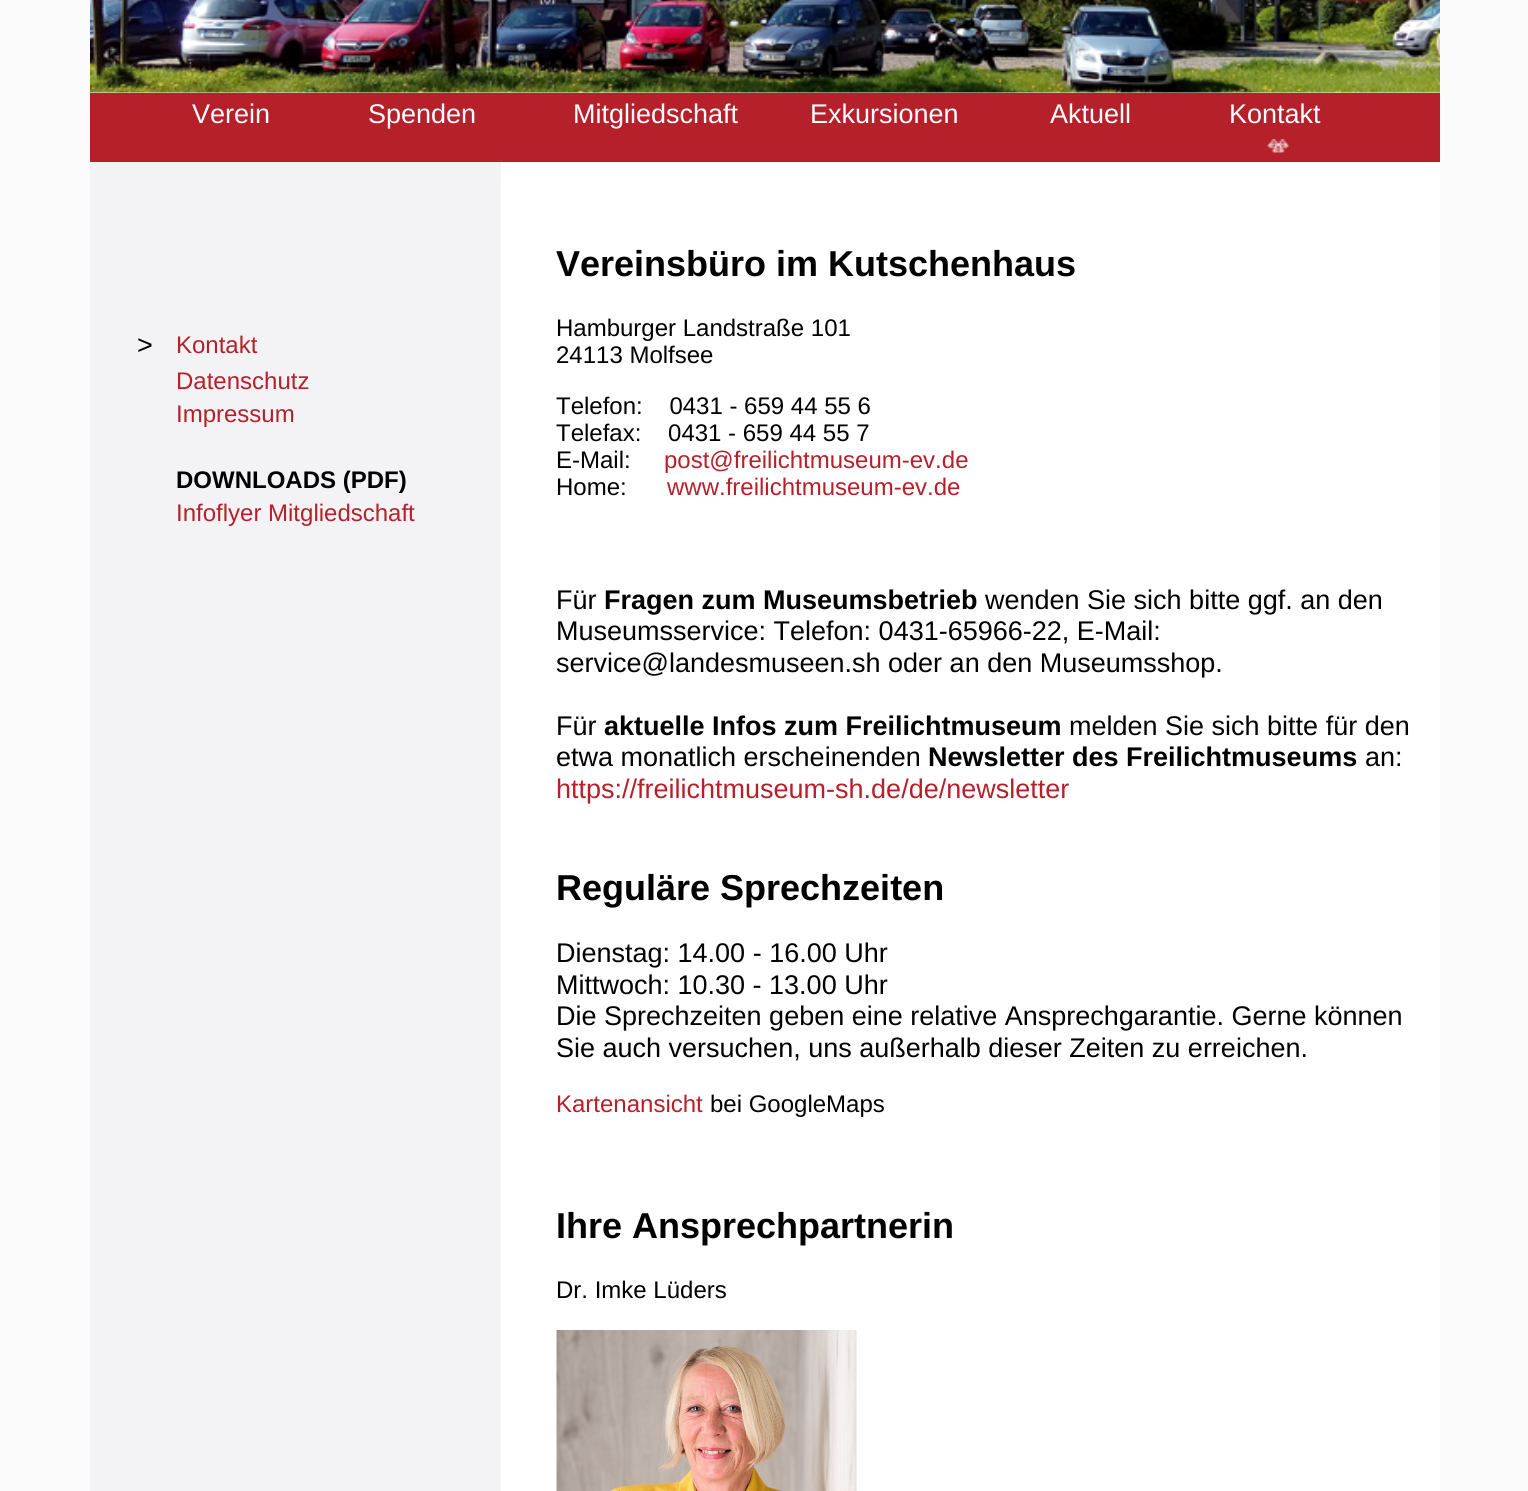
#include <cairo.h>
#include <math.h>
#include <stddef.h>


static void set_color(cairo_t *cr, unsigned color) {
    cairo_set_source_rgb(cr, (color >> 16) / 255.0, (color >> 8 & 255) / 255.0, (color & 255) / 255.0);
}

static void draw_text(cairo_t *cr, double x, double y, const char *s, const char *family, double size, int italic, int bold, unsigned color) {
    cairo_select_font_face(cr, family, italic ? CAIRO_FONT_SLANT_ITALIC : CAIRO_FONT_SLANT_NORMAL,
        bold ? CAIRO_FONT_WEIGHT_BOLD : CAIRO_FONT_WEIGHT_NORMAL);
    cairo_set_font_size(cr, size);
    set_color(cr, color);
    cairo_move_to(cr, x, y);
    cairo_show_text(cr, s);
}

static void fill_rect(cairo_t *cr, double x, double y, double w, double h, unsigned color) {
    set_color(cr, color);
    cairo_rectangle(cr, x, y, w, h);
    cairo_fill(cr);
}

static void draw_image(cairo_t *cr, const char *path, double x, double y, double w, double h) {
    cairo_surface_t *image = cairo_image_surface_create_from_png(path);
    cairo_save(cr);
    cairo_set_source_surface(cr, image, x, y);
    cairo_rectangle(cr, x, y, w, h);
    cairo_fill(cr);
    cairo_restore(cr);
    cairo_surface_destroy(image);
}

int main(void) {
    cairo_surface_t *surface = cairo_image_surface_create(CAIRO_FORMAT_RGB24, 1528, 1491);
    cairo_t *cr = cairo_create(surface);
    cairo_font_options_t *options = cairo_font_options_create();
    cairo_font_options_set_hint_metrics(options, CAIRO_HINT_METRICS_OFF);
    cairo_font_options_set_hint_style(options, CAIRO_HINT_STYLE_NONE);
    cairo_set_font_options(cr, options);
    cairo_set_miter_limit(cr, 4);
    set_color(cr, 0xFBFBFB);
    cairo_paint(cr);
    fill_rect(cr, 90, 92, 1350, 1, 0xF3F3F5);
    draw_image(cr, "assets/img1.png", 90, 0, 1350, 93);
    fill_rect(cr, 90, 93, 1350, 69, 0xB6202A);
    draw_text(cr, 192, 123, "Verein", "Liberation Sans", 27, 0, 0, 0xFFFFFF);
    draw_text(cr, 368, 123, "Spenden", "Liberation Sans", 27, 0, 0, 0xFFFFFF);
    draw_text(cr, 573, 123, "Mitgliedschaft", "Liberation Sans", 27, 0, 0, 0xFFFFFF);
    draw_text(cr, 810, 123, "Exkursionen", "Liberation Sans", 27, 0, 0, 0xFFFFFF);
    draw_text(cr, 1050, 123, "Aktuell", "Liberation Sans", 27, 0, 0, 0xFFFFFF);
    draw_text(cr, 1229, 123, "Kontakt", "Liberation Sans", 27, 0, 0, 0xFFFFFF);
    draw_image(cr, "assets/img2.png", 1267, 139, 22, 14);
    fill_rect(cr, 90, 162, 411, 1329, 0xF3F3F5);
    draw_text(cr, 137, 354, ">", "Liberation Sans", 27, 0, 0, 0x000000);
    draw_text(cr, 176, 353, "Kontakt", "Liberation Sans", 24, 0, 0, 0xB6202A);
    draw_text(cr, 176, 389, "Datenschutz", "Liberation Sans", 24, 0, 0, 0xB6202A);
    draw_text(cr, 176, 422, "Impressum", "Liberation Sans", 24, 0, 0, 0xB6202A);
    draw_text(cr, 176, 488, "DOWNLOADS (PDF)", "Liberation Sans", 24, 0, 1, 0x000000);
    draw_text(cr, 176, 521, "Infoflyer Mitgliedschaft", "Liberation Sans", 24, 0, 0, 0xB6202A);
    fill_rect(cr, 501, 162, 939, 1329, 0xFFFFFF);
    draw_text(cr, 556, 276, "Vereinsbüro im Kutschenhaus", "Liberation Sans", 36, 0, 1, 0x000000);
    draw_text(cr, 556, 336, "Hamburger Landstraße 101", "Liberation Sans", 24, 0, 0, 0x000000);
    draw_text(cr, 556, 363, "24113 Molfsee", "Liberation Sans", 24, 0, 0, 0x000000);
    draw_text(cr, 556, 414, "Telefon:    0431 - 659 44 55 6", "Liberation Sans", 24, 0, 0, 0x000000);
    draw_text(cr, 556, 441, "Telefax:    0431 - 659 44 55 7", "Liberation Sans", 24, 0, 0, 0x000000);
    draw_text(cr, 556, 468, "E-Mail:", "Liberation Sans", 24, 0, 0, 0x000000);
    draw_text(cr, 664, 468, "post@freilichtmuseum-ev.de", "Liberation Sans", 24, 0, 0, 0xB6202A);
    draw_text(cr, 556, 495, "Home:", "Liberation Sans", 24, 0, 0, 0x000000);
    draw_text(cr, 667, 495, "www.freilichtmuseum-ev.de", "Liberation Sans", 24, 0, 0, 0xB6202A);
    draw_text(cr, 556, 609, "Für", "Liberation Sans", 27, 0, 0, 0x000000);
    draw_text(cr, 604, 609, "Fragen zum Museumsbetrieb", "Liberation Sans", 27, 0, 1, 0x000000);
    draw_text(cr, 985, 609, "wenden Sie sich bitte ggf. an den", "Liberation Sans", 27, 0, 0, 0x000000);
    draw_text(cr, 556, 640, "Museumsservice: Telefon: 0431-65966-22, E-Mail:", "Liberation Sans", 27, 0, 0, 0x000000);
    draw_text(cr, 556, 672, "service@landesmuseen.sh oder an den Museumsshop.", "Liberation Sans", 27, 0, 0, 0x000000);
    draw_text(cr, 556, 735, "Für", "Liberation Sans", 27, 0, 0, 0x000000);
    draw_text(cr, 604, 735, "aktuelle Infos zum Freilichtmuseum", "Liberation Sans", 27, 0, 1, 0x000000);
    draw_text(cr, 1069, 735, "melden Sie sich bitte für den", "Liberation Sans", 27, 0, 0, 0x000000);
    draw_text(cr, 556, 766, "etwa monatlich erscheinenden", "Liberation Sans", 27, 0, 0, 0x000000);
    draw_text(cr, 928, 766, "Newsletter des Freilichtmuseums", "Liberation Sans", 27, 0, 1, 0x000000);
    draw_text(cr, 1365, 766, "an:", "Liberation Sans", 27, 0, 0, 0x000000);
    draw_text(cr, 556, 798, "https://freilichtmuseum-sh.de/de/newsletter", "Liberation Sans", 27, 0, 0, 0xB6202A);
    draw_text(cr, 556, 900, "Reguläre Sprechzeiten", "Liberation Sans", 36, 0, 1, 0x000000);
    draw_text(cr, 556, 962, "Dienstag: 14.00 - 16.00 Uhr", "Liberation Sans", 27, 0, 0, 0x000000);
    draw_text(cr, 556, 994, "Mittwoch: 10.30 - 13.00 Uhr", "Liberation Sans", 27, 0, 0, 0x000000);
    draw_text(cr, 556, 1025, "Die Sprechzeiten geben eine relative Ansprechgarantie. Gerne können", "Liberation Sans", 27, 0, 0, 0x000000);
    draw_text(cr, 556, 1057, "Sie auch versuchen, uns außerhalb dieser Zeiten zu erreichen.", "Liberation Sans", 27, 0, 0, 0x000000);
    draw_text(cr, 556, 1112, "Kartenansicht", "Liberation Sans", 24, 0, 0, 0xB6202A);
    draw_text(cr, 710, 1112, "bei GoogleMaps", "Liberation Sans", 24, 0, 0, 0x000000);
    draw_text(cr, 556, 1238, "Ihre Ansprechpartnerin", "Liberation Sans", 36, 0, 1, 0x000000);
    draw_text(cr, 556, 1298, "Dr. Imke Lüders", "Liberation Sans", 24, 0, 0, 0x000000);
    draw_image(cr, "assets/img3.png", 556, 1330, 301, 161);
    cairo_surface_write_to_png(surface, "output.png");
    cairo_font_options_destroy(options);
    cairo_destroy(cr);
    cairo_surface_destroy(surface);
    return 0;
}
